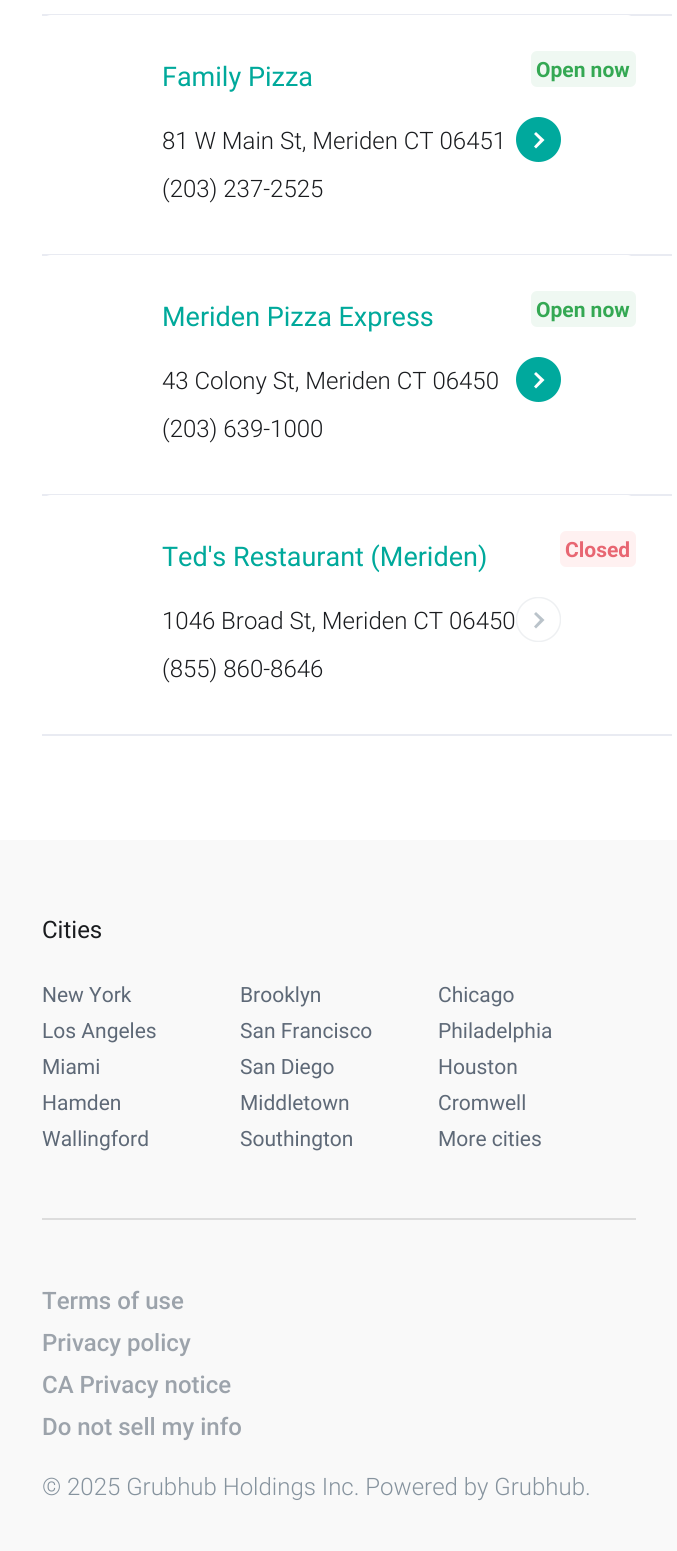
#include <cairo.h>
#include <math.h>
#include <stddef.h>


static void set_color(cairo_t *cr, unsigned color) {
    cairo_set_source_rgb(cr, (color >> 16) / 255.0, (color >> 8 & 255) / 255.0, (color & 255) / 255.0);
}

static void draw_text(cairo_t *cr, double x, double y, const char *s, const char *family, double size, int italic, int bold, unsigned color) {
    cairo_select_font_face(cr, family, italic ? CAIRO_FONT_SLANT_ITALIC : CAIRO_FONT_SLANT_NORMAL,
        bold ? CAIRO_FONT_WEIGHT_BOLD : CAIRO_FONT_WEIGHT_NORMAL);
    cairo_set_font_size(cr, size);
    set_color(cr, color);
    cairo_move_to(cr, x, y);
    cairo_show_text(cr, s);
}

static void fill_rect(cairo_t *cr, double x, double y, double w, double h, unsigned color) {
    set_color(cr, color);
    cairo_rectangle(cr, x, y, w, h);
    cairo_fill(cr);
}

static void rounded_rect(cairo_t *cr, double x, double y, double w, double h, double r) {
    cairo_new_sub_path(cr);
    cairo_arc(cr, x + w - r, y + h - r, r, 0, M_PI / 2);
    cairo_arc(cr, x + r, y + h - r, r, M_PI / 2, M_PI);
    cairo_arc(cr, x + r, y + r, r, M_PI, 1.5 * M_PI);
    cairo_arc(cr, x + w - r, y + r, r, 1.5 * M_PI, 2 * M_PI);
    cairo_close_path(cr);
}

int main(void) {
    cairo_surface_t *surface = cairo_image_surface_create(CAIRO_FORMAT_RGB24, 677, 1551);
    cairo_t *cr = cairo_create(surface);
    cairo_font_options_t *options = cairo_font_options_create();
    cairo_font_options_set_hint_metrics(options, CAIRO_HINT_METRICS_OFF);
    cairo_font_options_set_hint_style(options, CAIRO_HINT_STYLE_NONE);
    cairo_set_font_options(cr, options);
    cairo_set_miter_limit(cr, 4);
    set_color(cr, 0xFFFFFF);
    cairo_paint(cr);
    fill_rect(cr, 42, 14, 630, 2, 0xE9EBF2);
    set_color(cr, 0xFFFFFF);
    rounded_rect(cr, 42, 15, 594, 204, 9);
    cairo_fill(cr);
    draw_text(cr, 162, 86, "Family Pizza", "Roboto", 27, 0, 0, 0x00A99B);
    draw_text(cr, 162, 149, "81 W Main St, Meriden CT 06451", "Roboto Light", 24, 0, 0, 0x1A1C1F);
    draw_text(cr, 162, 197, "(203) 237-2525", "Roboto Light", 24, 0, 0, 0x1A1C1F);
    set_color(cr, 0xEFF8F2);
    rounded_rect(cr, 531, 51, 105, 36, 6);
    cairo_fill(cr);
    draw_text(cr, 536, 77, "Open now", "Roboto", 21, 0, 1, 0x34A853);
    set_color(cr, 0x00A99D);
    cairo_new_path(cr);
    cairo_arc(cr, 538.5, 139.5, 22.5, 0, 2 * M_PI);
    cairo_fill(cr);
    set_color(cr, 0xFFFFFF);
    cairo_new_path(cr);
    cairo_move_to(cr, 536, 148.5);
    cairo_line_to(cr, 534, 146.5);
    cairo_line_to(cr, 540, 140);
    cairo_line_to(cr, 534, 134);
    cairo_line_to(cr, 536, 132);
    cairo_line_to(cr, 544.5, 140);
    cairo_close_path(cr);
    cairo_fill(cr);
    fill_rect(cr, 42, 254, 630, 2, 0xE9EBF2);
    set_color(cr, 0xFFFFFF);
    rounded_rect(cr, 42, 255, 594, 204, 9);
    cairo_fill(cr);
    draw_text(cr, 162, 326, "Meriden Pizza Express", "Roboto", 27, 0, 0, 0x00A99B);
    draw_text(cr, 162, 389, "43 Colony St, Meriden CT 06450", "Roboto Light", 24, 0, 0, 0x1A1C1F);
    draw_text(cr, 162, 437, "(203) 639-1000", "Roboto Light", 24, 0, 0, 0x1A1C1F);
    set_color(cr, 0xEFF8F2);
    rounded_rect(cr, 531, 291, 105, 36, 6);
    cairo_fill(cr);
    draw_text(cr, 536, 317, "Open now", "Roboto", 21, 0, 1, 0x34A853);
    set_color(cr, 0x00A99D);
    cairo_new_path(cr);
    cairo_arc(cr, 538.5, 379.5, 22.5, 0, 2 * M_PI);
    cairo_fill(cr);
    set_color(cr, 0xFFFFFF);
    cairo_new_path(cr);
    cairo_move_to(cr, 536, 388.5);
    cairo_line_to(cr, 534, 386.5);
    cairo_line_to(cr, 540, 380);
    cairo_line_to(cr, 534, 374);
    cairo_line_to(cr, 536, 372);
    cairo_line_to(cr, 544.5, 380);
    cairo_close_path(cr);
    cairo_fill(cr);
    fill_rect(cr, 42, 494, 630, 2, 0xE9EBF2);
    set_color(cr, 0xFFFFFF);
    rounded_rect(cr, 42, 495, 594, 204, 9);
    cairo_fill(cr);
    draw_text(cr, 162, 566, "Ted's Restaurant (Meriden)", "Roboto", 27, 0, 0, 0x00A99B);
    draw_text(cr, 162, 629, "1046 Broad St, Meriden CT 06450", "Roboto Light", 24, 0, 0, 0x1A1C1F);
    draw_text(cr, 162, 677, "(855) 860-8646", "Roboto Light", 24, 0, 0, 0x1A1C1F);
    set_color(cr, 0xFFF1F1);
    rounded_rect(cr, 560, 531, 76, 36, 6);
    cairo_fill(cr);
    draw_text(cr, 565, 557, "Closed", "Roboto", 21, 0, 1, 0xE86672);
    cairo_save(cr);
    cairo_rectangle(cr, 516, 597, 45, 45);
    cairo_clip(cr);
    cairo_arc(cr, 538.5, 619.5, 22, 0, 2 * M_PI);
    set_color(cr, 0xEEF0F2);
    cairo_set_line_width(cr, 1.5);
    cairo_stroke(cr);
    cairo_restore(cr);
    set_color(cr, 0xBAC3CA);
    cairo_set_fill_rule(cr, CAIRO_FILL_RULE_EVEN_ODD);
    cairo_new_path(cr);
    cairo_move_to(cr, 536, 628.5);
    cairo_line_to(cr, 534, 626.5);
    cairo_line_to(cr, 540, 620);
    cairo_line_to(cr, 534, 614);
    cairo_line_to(cr, 536, 612);
    cairo_line_to(cr, 544.5, 620);
    cairo_close_path(cr);
    cairo_fill(cr);
    fill_rect(cr, 42, 734, 630, 2, 0xE9EBF2);
    fill_rect(cr, 0, 840, 677, 711, 0xF9F9F9);
    draw_text(cr, 42, 938, "Cities", "Roboto", 24, 0, 0, 0x1A1C1F);
    draw_text(cr, 42, 1002, "New York", "Roboto", 21, 0, 0, 0x5E6977);
    draw_text(cr, 240, 1002, "Brooklyn", "Roboto", 21, 0, 0, 0x5E6977);
    draw_text(cr, 438, 1002, "Chicago", "Roboto", 21, 0, 0, 0x5E6977);
    draw_text(cr, 42, 1038, "Los Angeles", "Roboto", 21, 0, 0, 0x5E6977);
    draw_text(cr, 240, 1038, "San Francisco", "Roboto", 21, 0, 0, 0x5E6977);
    draw_text(cr, 438, 1038, "Philadelphia", "Roboto", 21, 0, 0, 0x5E6977);
    draw_text(cr, 42, 1074, "Miami", "Roboto", 21, 0, 0, 0x5E6977);
    draw_text(cr, 240, 1074, "San Diego", "Roboto", 21, 0, 0, 0x5E6977);
    draw_text(cr, 438, 1074, "Houston", "Roboto", 21, 0, 0, 0x5E6977);
    draw_text(cr, 42, 1110, "Hamden", "Roboto", 21, 0, 0, 0x5E6977);
    draw_text(cr, 240, 1110, "Middletown", "Roboto", 21, 0, 0, 0x5E6977);
    draw_text(cr, 438, 1110, "Cromwell", "Roboto", 21, 0, 0, 0x5E6977);
    draw_text(cr, 42, 1146, "Wallingford", "Roboto", 21, 0, 0, 0x5E6977);
    draw_text(cr, 240, 1146, "Southington", "Roboto", 21, 0, 0, 0x5E6977);
    draw_text(cr, 438, 1146, "More cities", "Roboto", 21, 0, 0, 0x5E6977);
    fill_rect(cr, 42, 1218, 594, 2, 0xDDDDDD);
    draw_text(cr, 42, 1309, "Terms of use", "Roboto Medium", 24, 0, 0, 0x9CA3AB);
    draw_text(cr, 42, 1351, "Privacy policy", "Roboto Medium", 24, 0, 0, 0x9CA3AB);
    draw_text(cr, 42, 1393, "CA Privacy notice", "Roboto Medium", 24, 0, 0, 0x9CA3AB);
    draw_text(cr, 42, 1435, "Do not sell my info", "Roboto Medium", 24, 0, 0, 0x9CA3AB);
    draw_text(cr, 42, 1495, "© 2025 Grubhub Holdings Inc. Powered by Grubhub.", "Roboto Light", 24, 0, 0, 0x86939E);
    cairo_surface_write_to_png(surface, "output.png");
    cairo_font_options_destroy(options);
    cairo_destroy(cr);
    cairo_surface_destroy(surface);
    return 0;
}
